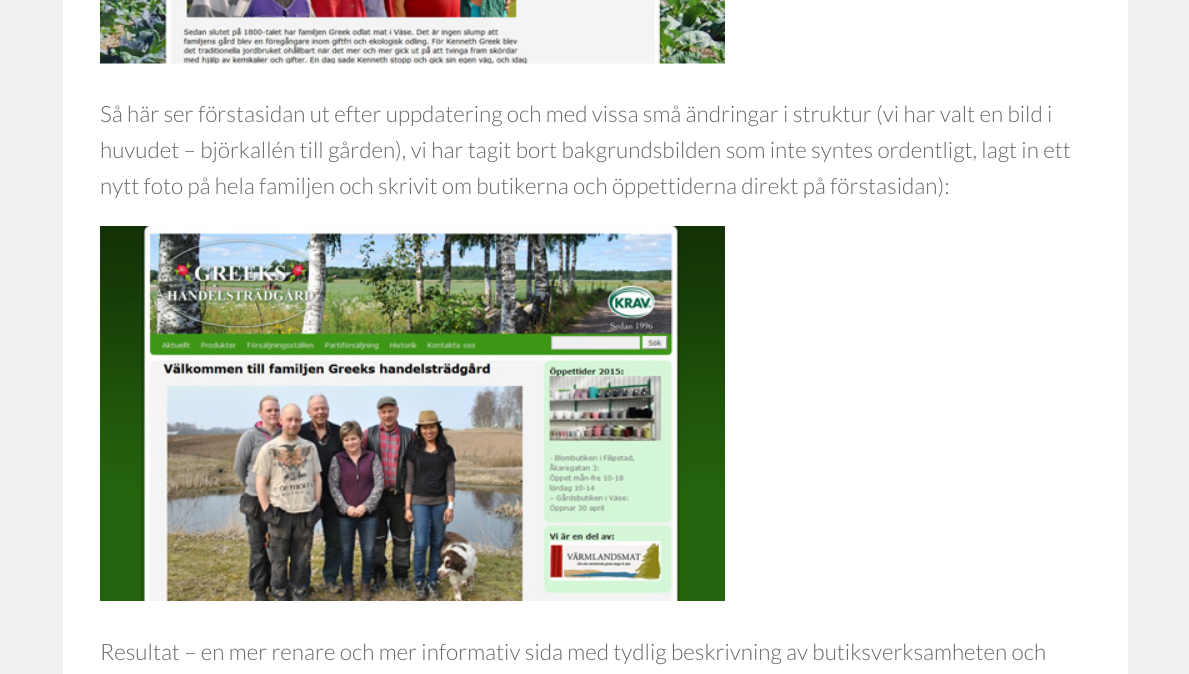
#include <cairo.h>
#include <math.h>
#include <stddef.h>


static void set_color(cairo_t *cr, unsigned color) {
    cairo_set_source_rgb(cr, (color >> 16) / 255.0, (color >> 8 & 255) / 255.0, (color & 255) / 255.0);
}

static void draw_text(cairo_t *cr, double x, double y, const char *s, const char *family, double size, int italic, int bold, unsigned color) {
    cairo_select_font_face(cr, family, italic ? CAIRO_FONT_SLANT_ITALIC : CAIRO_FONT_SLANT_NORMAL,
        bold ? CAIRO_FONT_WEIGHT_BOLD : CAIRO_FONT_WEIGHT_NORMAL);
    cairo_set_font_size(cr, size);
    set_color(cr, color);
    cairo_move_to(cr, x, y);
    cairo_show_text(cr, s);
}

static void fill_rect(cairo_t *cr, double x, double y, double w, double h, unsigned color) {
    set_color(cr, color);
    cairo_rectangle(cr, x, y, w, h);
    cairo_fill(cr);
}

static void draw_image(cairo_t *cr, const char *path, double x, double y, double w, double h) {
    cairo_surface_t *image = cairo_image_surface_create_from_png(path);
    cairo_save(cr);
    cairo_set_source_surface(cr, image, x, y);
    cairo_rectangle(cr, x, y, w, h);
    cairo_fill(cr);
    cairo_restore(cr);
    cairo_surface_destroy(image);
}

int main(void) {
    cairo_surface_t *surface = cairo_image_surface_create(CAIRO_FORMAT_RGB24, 1189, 674);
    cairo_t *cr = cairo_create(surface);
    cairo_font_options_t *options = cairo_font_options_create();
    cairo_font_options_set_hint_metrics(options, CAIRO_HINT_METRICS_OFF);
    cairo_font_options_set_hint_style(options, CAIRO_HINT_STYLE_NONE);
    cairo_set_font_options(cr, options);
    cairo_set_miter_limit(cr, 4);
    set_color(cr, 0xFFFFFF);
    cairo_paint(cr);
    fill_rect(cr, 0, 0, 63, 674, 0xF0F0F0);
    draw_image(cr, "assets/img1.png", 100, 0, 625, 64);
    draw_text(cr, 100, 122, "Så här ser förstasidan ut efter uppdatering och med vissa små ändringar i struktur (vi har valt en bild i", "Lato Light", 22.5, 0, 0, 0x666666);
    draw_text(cr, 100, 158, "huvudet – björkallén till gården), vi har tagit bort bakgrundsbilden som inte syntes ordentligt, lagt in ett", "Lato Light", 22.5, 0, 0, 0x666666);
    draw_text(cr, 100, 194, "nytt foto på hela familjen och skrivit om butikerna och öppettiderna direkt på förstasidan):", "Lato Light", 22.5, 0, 0, 0x666666);
    draw_image(cr, "assets/img2.png", 100, 226, 625, 375);
    draw_text(cr, 100, 660, "Resultat – en mer renare och mer informativ sida med tydlig beskrivning av butiksverksamheten och", "Lato Light", 22.5, 0, 0, 0x666666);
    fill_rect(cr, 1128, 0, 61, 674, 0xF0F0F0);
    cairo_surface_write_to_png(surface, "output.png");
    cairo_font_options_destroy(options);
    cairo_destroy(cr);
    cairo_surface_destroy(surface);
    return 0;
}
